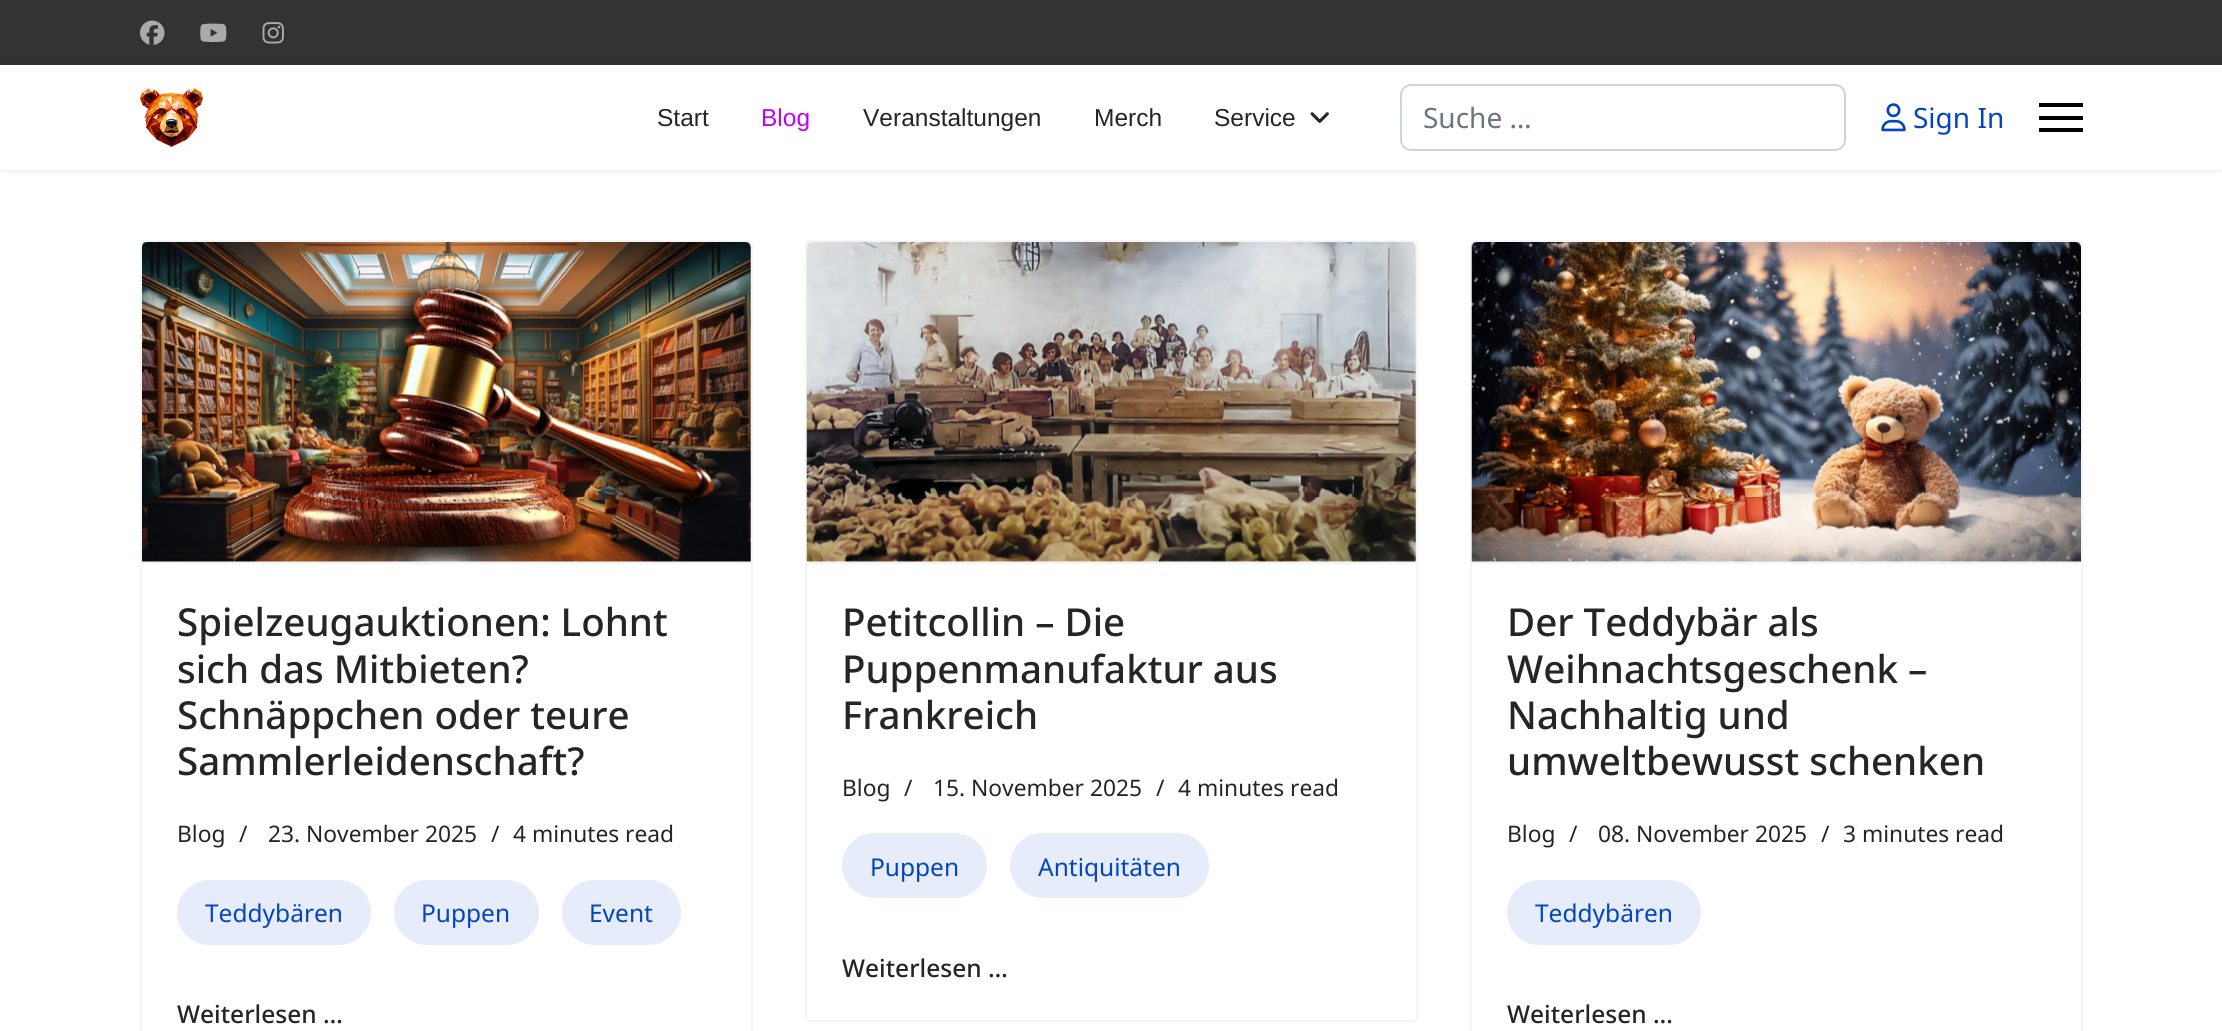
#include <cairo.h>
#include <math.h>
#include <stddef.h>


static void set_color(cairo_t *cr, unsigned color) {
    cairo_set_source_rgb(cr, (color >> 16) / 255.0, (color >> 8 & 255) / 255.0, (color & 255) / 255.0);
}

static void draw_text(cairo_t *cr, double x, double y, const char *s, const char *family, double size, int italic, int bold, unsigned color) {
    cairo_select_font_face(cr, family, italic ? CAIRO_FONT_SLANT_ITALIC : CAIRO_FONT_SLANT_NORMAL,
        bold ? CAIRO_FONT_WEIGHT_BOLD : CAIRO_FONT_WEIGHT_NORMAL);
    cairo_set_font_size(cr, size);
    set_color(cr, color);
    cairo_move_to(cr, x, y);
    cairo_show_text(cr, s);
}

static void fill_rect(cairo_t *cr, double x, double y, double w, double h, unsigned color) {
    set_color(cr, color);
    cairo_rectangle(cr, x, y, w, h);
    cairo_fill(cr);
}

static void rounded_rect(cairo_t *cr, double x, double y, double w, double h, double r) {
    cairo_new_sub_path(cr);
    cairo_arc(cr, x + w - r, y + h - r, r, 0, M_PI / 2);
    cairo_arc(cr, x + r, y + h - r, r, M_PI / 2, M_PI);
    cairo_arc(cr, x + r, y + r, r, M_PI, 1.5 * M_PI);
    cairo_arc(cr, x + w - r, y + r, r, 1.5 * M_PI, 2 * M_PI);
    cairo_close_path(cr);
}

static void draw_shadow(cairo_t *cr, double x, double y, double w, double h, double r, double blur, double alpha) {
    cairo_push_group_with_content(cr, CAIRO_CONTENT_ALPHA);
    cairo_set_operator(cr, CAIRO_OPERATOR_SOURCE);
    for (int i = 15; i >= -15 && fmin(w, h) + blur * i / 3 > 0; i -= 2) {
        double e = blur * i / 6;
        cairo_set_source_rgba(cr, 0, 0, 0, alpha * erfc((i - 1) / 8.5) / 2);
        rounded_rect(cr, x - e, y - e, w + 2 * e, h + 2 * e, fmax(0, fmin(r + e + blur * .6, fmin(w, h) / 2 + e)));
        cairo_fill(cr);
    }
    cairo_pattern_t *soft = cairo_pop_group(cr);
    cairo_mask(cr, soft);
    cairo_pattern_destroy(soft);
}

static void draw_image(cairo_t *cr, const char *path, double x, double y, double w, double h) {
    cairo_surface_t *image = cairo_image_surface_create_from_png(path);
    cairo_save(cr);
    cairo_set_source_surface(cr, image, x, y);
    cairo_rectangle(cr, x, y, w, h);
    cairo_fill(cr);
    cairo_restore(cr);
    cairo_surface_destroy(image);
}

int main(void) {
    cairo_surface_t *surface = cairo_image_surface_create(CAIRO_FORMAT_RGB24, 2222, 1031);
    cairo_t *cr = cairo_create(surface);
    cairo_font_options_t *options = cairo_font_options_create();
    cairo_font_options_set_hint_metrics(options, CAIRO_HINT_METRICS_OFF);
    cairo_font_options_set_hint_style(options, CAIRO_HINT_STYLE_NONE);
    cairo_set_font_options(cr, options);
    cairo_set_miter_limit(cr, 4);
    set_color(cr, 0xFFFFFF);
    cairo_paint(cr);
    fill_rect(cr, 0, 0, 2222, 65, 0x333333);
    draw_image(cr, "assets/img1.png", 140, 20, 25, 25);
    draw_image(cr, "assets/img2.png", 200, 23, 27, 19);
    draw_image(cr, "assets/img3.png", 262, 22, 22, 22);
    cairo_save(cr);
    cairo_set_fill_rule(cr, CAIRO_FILL_RULE_EVEN_ODD);
    cairo_new_path(cr);
    cairo_move_to(cr, 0, 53);
    cairo_line_to(cr, 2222, 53);
    cairo_line_to(cr, 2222, 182);
    cairo_line_to(cr, 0, 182);
    cairo_close_path(cr);
    cairo_move_to(cr, 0, 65);
    cairo_line_to(cr, 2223, 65);
    cairo_line_to(cr, 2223, 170);
    cairo_line_to(cr, 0, 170);
    cairo_close_path(cr);
    cairo_clip(cr);
    set_color(cr, 0x000000);
    draw_shadow(cr, 0, 65, 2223, 105, 0, 3.5, 0.1);
    cairo_restore(cr);
    draw_image(cr, "assets/img4.png", 140, 88, 63, 59);
    draw_text(cr, 657, 126, "Start", "Liberation Sans", 24.5, 0, 0, 0x252525);
    draw_text(cr, 761, 126, "Blog", "Liberation Sans", 24.5, 0, 0, 0xBF00FF);
    draw_text(cr, 863, 126, "Veranstaltungen", "Liberation Sans", 24.5, 0, 0, 0x252525);
    draw_text(cr, 1094, 126, "Merch", "Liberation Sans", 24.5, 0, 0, 0x252525);
    draw_text(cr, 1214, 126, "Service", "Liberation Sans", 24.5, 0, 0, 0x252525);
    draw_image(cr, "assets/img5.png", 1310, 112, 19, 11);
    rounded_rect(cr, 1401, 85, 444, 65, 10);
    set_color(cr, 0xCED4DA);
    cairo_stroke(cr);
    draw_text(cr, 1423, 128, "Suche …", "Noto Sans", 28, 0, 0, 0x6C757D);
    draw_image(cr, "assets/img6.png", 1881, 103, 25, 29);
    draw_text(cr, 1913, 128, "Sign In", "Noto Sans", 28, 0, 0, 0x0345BF);
    fill_rect(cr, 2039, 103, 44, 4, 0x000000);
    fill_rect(cr, 2039, 116, 44, 4, 0x000000);
    fill_rect(cr, 2039, 128, 44, 4, 0x000000);
    rounded_rect(cr, 141, 241, 611, 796, 4);
    set_color(cr, 0xF5F5F5);
    cairo_stroke(cr);
    fill_rect(cr, 142, 562, 609, 2, 0xF5F5F5);
    draw_image(cr, "assets/img7.png", 142, 242, 609, 320);
    draw_text(cr, 177, 636, "Spielzeugauktionen: Lohnt", "Noto Sans Medium", 38.5, 0, 0, 0x252525);
    draw_text(cr, 177, 683, "sich das Mitbieten?", "Noto Sans Medium", 38.5, 0, 0, 0x252525);
    draw_text(cr, 177, 729, "Schnäppchen oder teure", "Noto Sans Medium", 38.5, 0, 0, 0x252525);
    draw_text(cr, 177, 775, "Sammlerleidenschaft?", "Noto Sans Medium", 38.5, 0, 0, 0x252525);
    draw_text(cr, 177, 842, "Blog", "Noto Sans", 22.75, 0, 0, 0x252525);
    draw_text(cr, 239, 842, "/", "Noto Sans", 22.75, 0, 0, 0x252525);
    draw_text(cr, 268, 842, "23. November 2025", "Noto Sans", 22.75, 0, 0, 0x252525);
    draw_text(cr, 491, 842, "/", "Noto Sans", 22.75, 0, 0, 0x252525);
    draw_text(cr, 513, 842, "4 minutes read", "Noto Sans", 22.75, 0, 0, 0x252525);
    set_color(cr, 0xE6ECF9);
    rounded_rect(cr, 177, 880, 194, 65, 32.5);
    cairo_fill(cr);
    draw_text(cr, 205, 922, "Teddybären", "Noto Sans", 24.5, 0, 0, 0x0345BF);
    set_color(cr, 0xE6ECF9);
    rounded_rect(cr, 394, 880, 145, 65, 32.5);
    cairo_fill(cr);
    draw_text(cr, 421, 922, "Puppen", "Noto Sans", 24.5, 0, 0, 0x0345BF);
    set_color(cr, 0xE6ECF9);
    rounded_rect(cr, 562, 880, 119, 65, 32.5);
    cairo_fill(cr);
    draw_text(cr, 589, 922, "Event", "Noto Sans", 24.5, 0, 0, 0x0345BF);
    draw_text(cr, 177, 1023, "Weiterlesen …", "Noto Sans Medium", 24.5, 0, 0, 0x252525);
    rounded_rect(cr, 806, 241, 611, 780, 4);
    set_color(cr, 0xF5F5F5);
    cairo_stroke(cr);
    fill_rect(cr, 807, 562, 609, 2, 0xF5F5F5);
    draw_image(cr, "assets/img8.png", 806, 242, 610, 320);
    draw_text(cr, 842, 636, "Petitcollin – Die", "Noto Sans Medium", 38.5, 0, 0, 0x252525);
    draw_text(cr, 842, 683, "Puppenmanufaktur aus", "Noto Sans Medium", 38.5, 0, 0, 0x252525);
    draw_text(cr, 842, 729, "Frankreich", "Noto Sans Medium", 38.5, 0, 0, 0x252525);
    draw_text(cr, 842, 796, "Blog", "Noto Sans", 22.75, 0, 0, 0x252525);
    draw_text(cr, 904, 796, "/", "Noto Sans", 22.75, 0, 0, 0x252525);
    draw_text(cr, 933, 796, "15. November 2025", "Noto Sans", 22.75, 0, 0, 0x252525);
    draw_text(cr, 1156, 796, "/", "Noto Sans", 22.75, 0, 0, 0x252525);
    draw_text(cr, 1178, 796, "4 minutes read", "Noto Sans", 22.75, 0, 0, 0x252525);
    set_color(cr, 0xE6ECF9);
    rounded_rect(cr, 842, 833, 145, 65, 32.5);
    cairo_fill(cr);
    draw_text(cr, 870, 876, "Puppen", "Noto Sans", 24.5, 0, 0, 0x0345BF);
    set_color(cr, 0xE6ECF9);
    rounded_rect(cr, 1010, 833, 199, 65, 32.5);
    cairo_fill(cr);
    draw_text(cr, 1038, 876, "Antiquitäten", "Noto Sans", 24.5, 0, 0, 0x0345BF);
    draw_text(cr, 842, 977, "Weiterlesen …", "Noto Sans Medium", 24.5, 0, 0, 0x252525);
    rounded_rect(cr, 1471, 241, 611, 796, 4);
    set_color(cr, 0xF5F5F5);
    cairo_stroke(cr);
    fill_rect(cr, 1472, 562, 609, 2, 0xF5F5F5);
    draw_image(cr, "assets/img9.png", 1471, 242, 610, 320);
    draw_text(cr, 1507, 636, "Der Teddybär als", "Noto Sans Medium", 38.5, 0, 0, 0x252525);
    draw_text(cr, 1507, 683, "Weihnachtsgeschenk –", "Noto Sans Medium", 38.5, 0, 0, 0x252525);
    draw_text(cr, 1507, 729, "Nachhaltig und", "Noto Sans Medium", 38.5, 0, 0, 0x252525);
    draw_text(cr, 1507, 775, "umweltbewusst schenken", "Noto Sans Medium", 38.5, 0, 0, 0x252525);
    draw_text(cr, 1507, 842, "Blog", "Noto Sans", 22.75, 0, 0, 0x252525);
    draw_text(cr, 1569, 842, "/", "Noto Sans", 22.75, 0, 0, 0x252525);
    draw_text(cr, 1598, 842, "08. November 2025", "Noto Sans", 22.75, 0, 0, 0x252525);
    draw_text(cr, 1821, 842, "/", "Noto Sans", 22.75, 0, 0, 0x252525);
    draw_text(cr, 1843, 842, "3 minutes read", "Noto Sans", 22.75, 0, 0, 0x252525);
    set_color(cr, 0xE6ECF9);
    rounded_rect(cr, 1507, 880, 194, 65, 32.5);
    cairo_fill(cr);
    draw_text(cr, 1535, 922, "Teddybären", "Noto Sans", 24.5, 0, 0, 0x0345BF);
    draw_text(cr, 1507, 1023, "Weiterlesen …", "Noto Sans Medium", 24.5, 0, 0, 0x252525);
    cairo_surface_write_to_png(surface, "output.png");
    cairo_font_options_destroy(options);
    cairo_destroy(cr);
    cairo_surface_destroy(surface);
    return 0;
}
